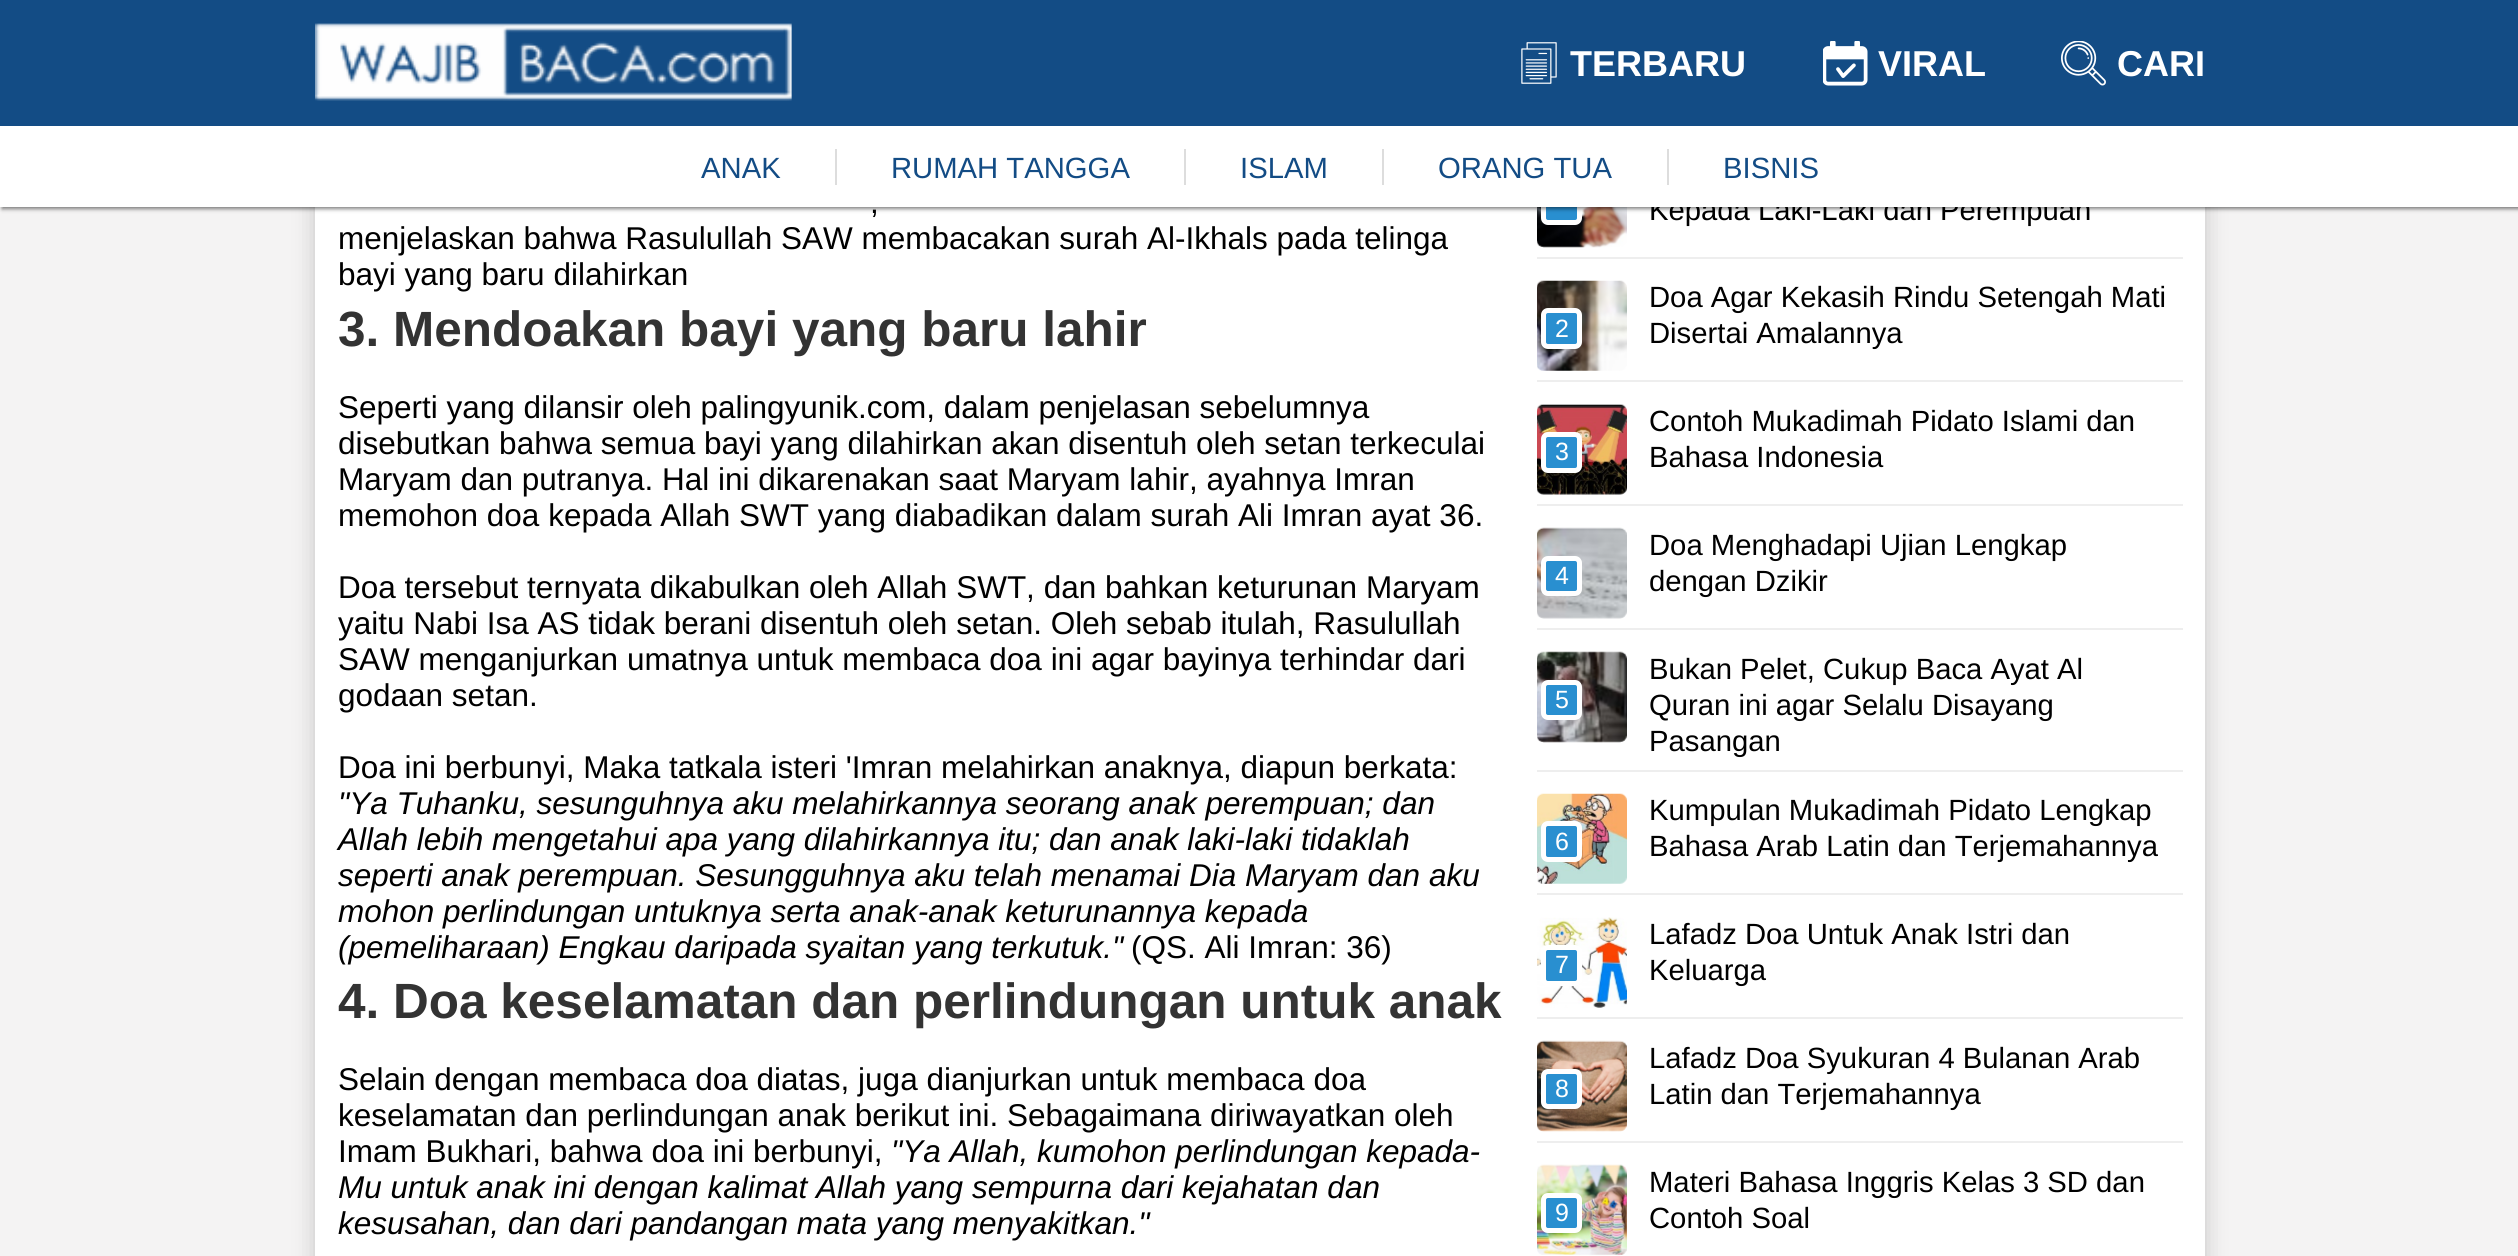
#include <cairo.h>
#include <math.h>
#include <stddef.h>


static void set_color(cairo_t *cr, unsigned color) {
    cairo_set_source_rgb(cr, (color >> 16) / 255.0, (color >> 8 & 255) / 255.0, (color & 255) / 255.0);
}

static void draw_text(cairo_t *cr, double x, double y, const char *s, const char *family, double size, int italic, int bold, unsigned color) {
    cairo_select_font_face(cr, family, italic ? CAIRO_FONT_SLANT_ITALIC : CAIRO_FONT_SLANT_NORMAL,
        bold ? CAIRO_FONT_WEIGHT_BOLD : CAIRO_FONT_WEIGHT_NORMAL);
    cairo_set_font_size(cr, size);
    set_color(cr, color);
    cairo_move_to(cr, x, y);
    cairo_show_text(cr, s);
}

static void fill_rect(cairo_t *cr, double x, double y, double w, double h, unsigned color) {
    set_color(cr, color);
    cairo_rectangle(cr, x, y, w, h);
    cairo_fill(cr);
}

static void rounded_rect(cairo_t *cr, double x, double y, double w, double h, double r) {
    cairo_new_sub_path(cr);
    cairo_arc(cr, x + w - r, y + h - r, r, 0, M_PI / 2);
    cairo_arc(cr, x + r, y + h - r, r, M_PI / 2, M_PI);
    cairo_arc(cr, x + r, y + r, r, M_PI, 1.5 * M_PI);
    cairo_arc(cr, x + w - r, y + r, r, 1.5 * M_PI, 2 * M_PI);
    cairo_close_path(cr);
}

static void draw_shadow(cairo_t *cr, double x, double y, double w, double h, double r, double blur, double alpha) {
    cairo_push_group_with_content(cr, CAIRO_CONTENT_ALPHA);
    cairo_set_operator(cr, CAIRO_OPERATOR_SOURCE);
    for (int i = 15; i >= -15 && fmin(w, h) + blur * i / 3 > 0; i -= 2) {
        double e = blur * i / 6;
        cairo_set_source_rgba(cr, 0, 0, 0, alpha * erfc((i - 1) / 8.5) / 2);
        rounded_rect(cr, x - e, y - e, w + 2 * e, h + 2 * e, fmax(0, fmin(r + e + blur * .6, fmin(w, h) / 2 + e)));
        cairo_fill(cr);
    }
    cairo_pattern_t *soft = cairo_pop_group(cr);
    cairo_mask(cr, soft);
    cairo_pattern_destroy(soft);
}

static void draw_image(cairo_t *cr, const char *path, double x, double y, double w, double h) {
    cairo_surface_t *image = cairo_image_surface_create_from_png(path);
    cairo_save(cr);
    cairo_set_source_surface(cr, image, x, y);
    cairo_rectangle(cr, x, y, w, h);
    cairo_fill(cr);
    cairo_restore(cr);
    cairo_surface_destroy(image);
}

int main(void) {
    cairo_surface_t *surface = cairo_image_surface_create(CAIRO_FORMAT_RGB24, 2518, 1256);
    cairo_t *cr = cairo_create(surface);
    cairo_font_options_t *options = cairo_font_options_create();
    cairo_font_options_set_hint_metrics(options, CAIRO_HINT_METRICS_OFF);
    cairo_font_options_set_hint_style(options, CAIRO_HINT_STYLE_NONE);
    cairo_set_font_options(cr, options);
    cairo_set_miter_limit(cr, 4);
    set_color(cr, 0xF4F3F3);
    cairo_paint(cr);
    set_color(cr, 0x000000);
    draw_shadow(cr, 315, -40, 1890, 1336, 7, 11, 0.2);
    fill_rect(cr, 315, 207, 1890, 1049, 0xFFFFFF);
    draw_image(cr, "assets/img5.png", 1537, 207, 90, 41);
    set_color(cr, 0x298FD0);
    rounded_rect(cr, 1543.5, 187.5, 36, 35, 4.5);
    cairo_fill_preserve(cr);
    set_color(cr, 0xFFFFFF);
    cairo_set_line_width(cr, 5);
    cairo_stroke(cr);
    set_color(cr, 0x000000);
    draw_shadow(cr, 2, 2, 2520, 207, 0, 2, 0.5);
    fill_rect(cr, 0, 0, 2518, 126, 0x134C85);
    draw_image(cr, "assets/img1.png", 315, 23, 477, 78);
    draw_image(cr, "assets/img2.png", 1521, 42, 36, 42);
    draw_text(cr, 1570, 76, "TERBARU", "Liberation Sans", 36, 0, 1, 0xFFFFFF);
    draw_image(cr, "assets/img3.png", 1823, 41, 45, 45);
    draw_text(cr, 1878, 76, "VIRAL", "Liberation Sans", 36, 0, 1, 0xFFFFFF);
    draw_image(cr, "assets/img4.png", 2061, 41, 45, 45);
    draw_text(cr, 2117, 76, "CARI", "Liberation Sans", 36, 0, 1, 0xFFFFFF);
    draw_text(cr, 1649, 220, "Kepada Laki-Laki dan Perempuan", "Liberation Sans", 29.25, 0, 0, 0x000000);
    fill_rect(cr, 0, 126, 2518, 81, 0xFFFFFF);
    fill_rect(cr, 835, 149, 2, 36, 0xDDDDDD);
    draw_text(cr, 701, 178, "ANAK", "Liberation Sans", 29.25, 0, 0, 0x134C85);
    fill_rect(cr, 1184, 149, 2, 36, 0xDDDDDD);
    draw_text(cr, 891, 178, "RUMAH TANGGA", "Liberation Sans", 29.25, 0, 0, 0x134C85);
    fill_rect(cr, 1382, 149, 2, 36, 0xDDDDDD);
    draw_text(cr, 1240, 178, "ISLAM", "Liberation Sans", 29.25, 0, 0, 0x134C85);
    fill_rect(cr, 1667, 149, 2, 36, 0xDDDDDD);
    draw_text(cr, 1438, 178, "ORANG TUA", "Liberation Sans", 29.25, 0, 0, 0x134C85);
    draw_text(cr, 1723, 178, "BISNIS", "Liberation Sans", 29.25, 0, 0, 0x134C85);
    draw_text(cr, 870, 213, ",", "Liberation Sans", 31.5, 0, 0, 0x000000);
    draw_text(cr, 338, 249, "menjelaskan bahwa Rasulullah SAW membacakan surah Al-Ikhals pada telinga", "Liberation Sans", 31.5, 0, 0, 0x000000);
    draw_text(cr, 338, 285, "bayi yang baru dilahirkan", "Liberation Sans", 31.5, 0, 0, 0x000000);
    draw_text(cr, 338, 346, "3. Mendoakan bayi yang baru lahir", "Liberation Sans", 49.5, 0, 1, 0x333333);
    draw_text(cr, 338, 418, "Seperti yang dilansir oleh palingyunik.com, dalam penjelasan sebelumnya", "Liberation Sans", 31.5, 0, 0, 0x000000);
    draw_text(cr, 338, 454, "disebutkan bahwa semua bayi yang dilahirkan akan disentuh oleh setan terkeculai", "Liberation Sans", 31.5, 0, 0, 0x000000);
    draw_text(cr, 338, 490, "Maryam dan putranya. Hal ini dikarenakan saat Maryam lahir, ayahnya Imran", "Liberation Sans", 31.5, 0, 0, 0x000000);
    draw_text(cr, 338, 526, "memohon doa kepada Allah SWT yang diabadikan dalam surah Ali Imran ayat 36.", "Liberation Sans", 31.5, 0, 0, 0x000000);
    draw_text(cr, 338, 598, "Doa tersebut ternyata dikabulkan oleh Allah SWT, dan bahkan keturunan Maryam", "Liberation Sans", 31.5, 0, 0, 0x000000);
    draw_text(cr, 338, 634, "yaitu Nabi Isa AS tidak berani disentuh oleh setan. Oleh sebab itulah, Rasulullah", "Liberation Sans", 31.5, 0, 0, 0x000000);
    draw_text(cr, 338, 670, "SAW menganjurkan umatnya untuk membaca doa ini agar bayinya terhindar dari", "Liberation Sans", 31.5, 0, 0, 0x000000);
    draw_text(cr, 338, 706, "godaan setan.", "Liberation Sans", 31.5, 0, 0, 0x000000);
    draw_text(cr, 338, 778, "Doa ini berbunyi, Maka tatkala isteri 'Imran melahirkan anaknya, diapun berkata:", "Liberation Sans", 31.5, 0, 0, 0x000000);
    draw_text(cr, 338, 814, "\"Ya Tuhanku, sesunguhnya aku melahirkannya seorang anak perempuan; dan", "Liberation Sans", 31.5, 1, 0, 0x000000);
    draw_text(cr, 338, 850, "Allah lebih mengetahui apa yang dilahirkannya itu; dan anak laki-laki tidaklah", "Liberation Sans", 31.5, 1, 0, 0x000000);
    draw_text(cr, 338, 886, "seperti anak perempuan. Sesungguhnya aku telah menamai Dia Maryam dan aku", "Liberation Sans", 31.5, 1, 0, 0x000000);
    draw_text(cr, 338, 922, "mohon perlindungan untuknya serta anak-anak keturunannya kepada", "Liberation Sans", 31.5, 1, 0, 0x000000);
    draw_text(cr, 338, 958, "(pemeliharaan) Engkau daripada syaitan yang terkutuk.\"", "Liberation Sans", 31.5, 1, 0, 0x000000);
    draw_text(cr, 1131, 958, "(QS. Ali Imran: 36)", "Liberation Sans", 31.5, 0, 0, 0x000000);
    draw_text(cr, 338, 1018, "4. Doa keselamatan dan perlindungan untuk anak", "Liberation Sans", 49.5, 0, 1, 0x333333);
    draw_text(cr, 338, 1090, "Selain dengan membaca doa diatas, juga dianjurkan untuk membaca doa", "Liberation Sans", 31.5, 0, 0, 0x000000);
    draw_text(cr, 338, 1126, "keselamatan dan perlindungan anak berikut ini. Sebagaimana diriwayatkan oleh", "Liberation Sans", 31.5, 0, 0, 0x000000);
    draw_text(cr, 338, 1162, "Imam Bukhari, bahwa doa ini berbunyi,", "Liberation Sans", 31.5, 0, 0, 0x000000);
    draw_text(cr, 891, 1162, "\"Ya Allah, kumohon perlindungan kepada-", "Liberation Sans", 31.5, 1, 0, 0x000000);
    draw_text(cr, 338, 1198, "Mu untuk anak ini dengan kalimat Allah yang sempurna dari kejahatan dan", "Liberation Sans", 31.5, 1, 0, 0x000000);
    draw_text(cr, 338, 1234, "kesusahan, dan dari pandangan mata yang menyakitkan.\"", "Liberation Sans", 31.5, 1, 0, 0x000000);
    fill_rect(cr, 1537, 257, 646, 2, 0xEEEEEE);
    fill_rect(cr, 1537, 380, 646, 2, 0xEEEEEE);
    draw_image(cr, "assets/img6.png", 1537, 280, 90, 91);
    draw_text(cr, 1649, 307, "Doa Agar Kekasih Rindu Setengah Mati", "Liberation Sans", 29.25, 0, 0, 0x000000);
    draw_text(cr, 1649, 343, "Disertai Amalannya", "Liberation Sans", 29.25, 0, 0, 0x000000);
    set_color(cr, 0x298FD0);
    rounded_rect(cr, 1543.5, 310.5, 36, 36, 4.5);
    cairo_fill_preserve(cr);
    set_color(cr, 0xFFFFFF);
    cairo_stroke(cr);
    draw_text(cr, 1555, 337, "2", "Liberation Sans", 25, 0, 0, 0xFFFFFF);
    fill_rect(cr, 1537, 504, 646, 2, 0xEEEEEE);
    draw_image(cr, "assets/img7.png", 1537, 404, 90, 91);
    draw_text(cr, 1649, 431, "Contoh Mukadimah Pidato Islami dan", "Liberation Sans", 29.25, 0, 0, 0x000000);
    draw_text(cr, 1649, 467, "Bahasa Indonesia", "Liberation Sans", 29.25, 0, 0, 0x000000);
    set_color(cr, 0x298FD0);
    rounded_rect(cr, 1543.5, 434.5, 36, 36, 4.5);
    cairo_fill_preserve(cr);
    set_color(cr, 0xFFFFFF);
    cairo_stroke(cr);
    draw_text(cr, 1555, 460, "3", "Liberation Sans", 25, 0, 0, 0xFFFFFF);
    fill_rect(cr, 1537, 628, 646, 2, 0xEEEEEE);
    draw_image(cr, "assets/img8.png", 1537, 527, 90, 92);
    draw_text(cr, 1649, 555, "Doa Menghadapi Ujian Lengkap", "Liberation Sans", 29.25, 0, 0, 0x000000);
    draw_text(cr, 1649, 591, "dengan Dzikir", "Liberation Sans", 29.25, 0, 0, 0x000000);
    set_color(cr, 0x298FD0);
    rounded_rect(cr, 1543.5, 558.5, 36, 35, 4.5);
    cairo_fill_preserve(cr);
    set_color(cr, 0xFFFFFF);
    cairo_stroke(cr);
    draw_text(cr, 1555, 584, "4", "Liberation Sans", 25, 0, 0, 0xFFFFFF);
    fill_rect(cr, 1537, 770, 646, 2, 0xEEEEEE);
    draw_image(cr, "assets/img9.png", 1537, 651, 90, 92);
    draw_text(cr, 1649, 679, "Bukan Pelet, Cukup Baca Ayat Al", "Liberation Sans", 29.25, 0, 0, 0x000000);
    draw_text(cr, 1649, 715, "Quran ini agar Selalu Disayang", "Liberation Sans", 29.25, 0, 0, 0x000000);
    draw_text(cr, 1649, 751, "Pasangan", "Liberation Sans", 29.25, 0, 0, 0x000000);
    set_color(cr, 0x298FD0);
    rounded_rect(cr, 1543.5, 682.5, 36, 35, 4.5);
    cairo_fill_preserve(cr);
    set_color(cr, 0xFFFFFF);
    cairo_stroke(cr);
    draw_text(cr, 1555, 708, "5", "Liberation Sans", 25, 0, 0, 0xFFFFFF);
    fill_rect(cr, 1537, 893, 646, 2, 0xEEEEEE);
    draw_image(cr, "assets/img10.png", 1537, 793, 90, 91);
    draw_text(cr, 1649, 820, "Kumpulan Mukadimah Pidato Lengkap", "Liberation Sans", 29.25, 0, 0, 0x000000);
    draw_text(cr, 1649, 856, "Bahasa Arab Latin dan Terjemahannya", "Liberation Sans", 29.25, 0, 0, 0x000000);
    set_color(cr, 0x298FD0);
    rounded_rect(cr, 1543.5, 823.5, 36, 36, 4.5);
    cairo_fill_preserve(cr);
    set_color(cr, 0xFFFFFF);
    cairo_stroke(cr);
    draw_text(cr, 1555, 850, "6", "Liberation Sans", 25, 0, 0, 0xFFFFFF);
    fill_rect(cr, 1537, 1017, 646, 2, 0xEEEEEE);
    draw_image(cr, "assets/img11.png", 1537, 917, 90, 91);
    draw_text(cr, 1649, 944, "Lafadz Doa Untuk Anak Istri dan", "Liberation Sans", 29.25, 0, 0, 0x000000);
    draw_text(cr, 1649, 980, "Keluarga", "Liberation Sans", 29.25, 0, 0, 0x000000);
    set_color(cr, 0x298FD0);
    rounded_rect(cr, 1543.5, 947.5, 36, 36, 4.5);
    cairo_fill_preserve(cr);
    set_color(cr, 0xFFFFFF);
    cairo_stroke(cr);
    draw_text(cr, 1555, 973, "7", "Liberation Sans", 25, 0, 0, 0xFFFFFF);
    fill_rect(cr, 1537, 1141, 646, 2, 0xEEEEEE);
    draw_image(cr, "assets/img12.png", 1537, 1040, 90, 92);
    draw_text(cr, 1649, 1068, "Lafadz Doa Syukuran 4 Bulanan Arab", "Liberation Sans", 29.25, 0, 0, 0x000000);
    draw_text(cr, 1649, 1104, "Latin dan Terjemahannya", "Liberation Sans", 29.25, 0, 0, 0x000000);
    set_color(cr, 0x298FD0);
    rounded_rect(cr, 1543.5, 1071.5, 36, 35, 4.5);
    cairo_fill_preserve(cr);
    set_color(cr, 0xFFFFFF);
    cairo_stroke(cr);
    draw_text(cr, 1555, 1097, "8", "Liberation Sans", 25, 0, 0, 0xFFFFFF);
    draw_image(cr, "assets/img13.png", 1537, 1164, 90, 92);
    draw_text(cr, 1649, 1192, "Materi Bahasa Inggris Kelas 3 SD dan", "Liberation Sans", 29.25, 0, 0, 0x000000);
    draw_text(cr, 1649, 1228, "Contoh Soal", "Liberation Sans", 29.25, 0, 0, 0x000000);
    set_color(cr, 0x298FD0);
    rounded_rect(cr, 1543.5, 1195.5, 36, 35, 4.5);
    cairo_fill_preserve(cr);
    set_color(cr, 0xFFFFFF);
    cairo_stroke(cr);
    draw_text(cr, 1555, 1221, "9", "Liberation Sans", 25, 0, 0, 0xFFFFFF);
    cairo_surface_write_to_png(surface, "output.png");
    cairo_font_options_destroy(options);
    cairo_destroy(cr);
    cairo_surface_destroy(surface);
    return 0;
}
